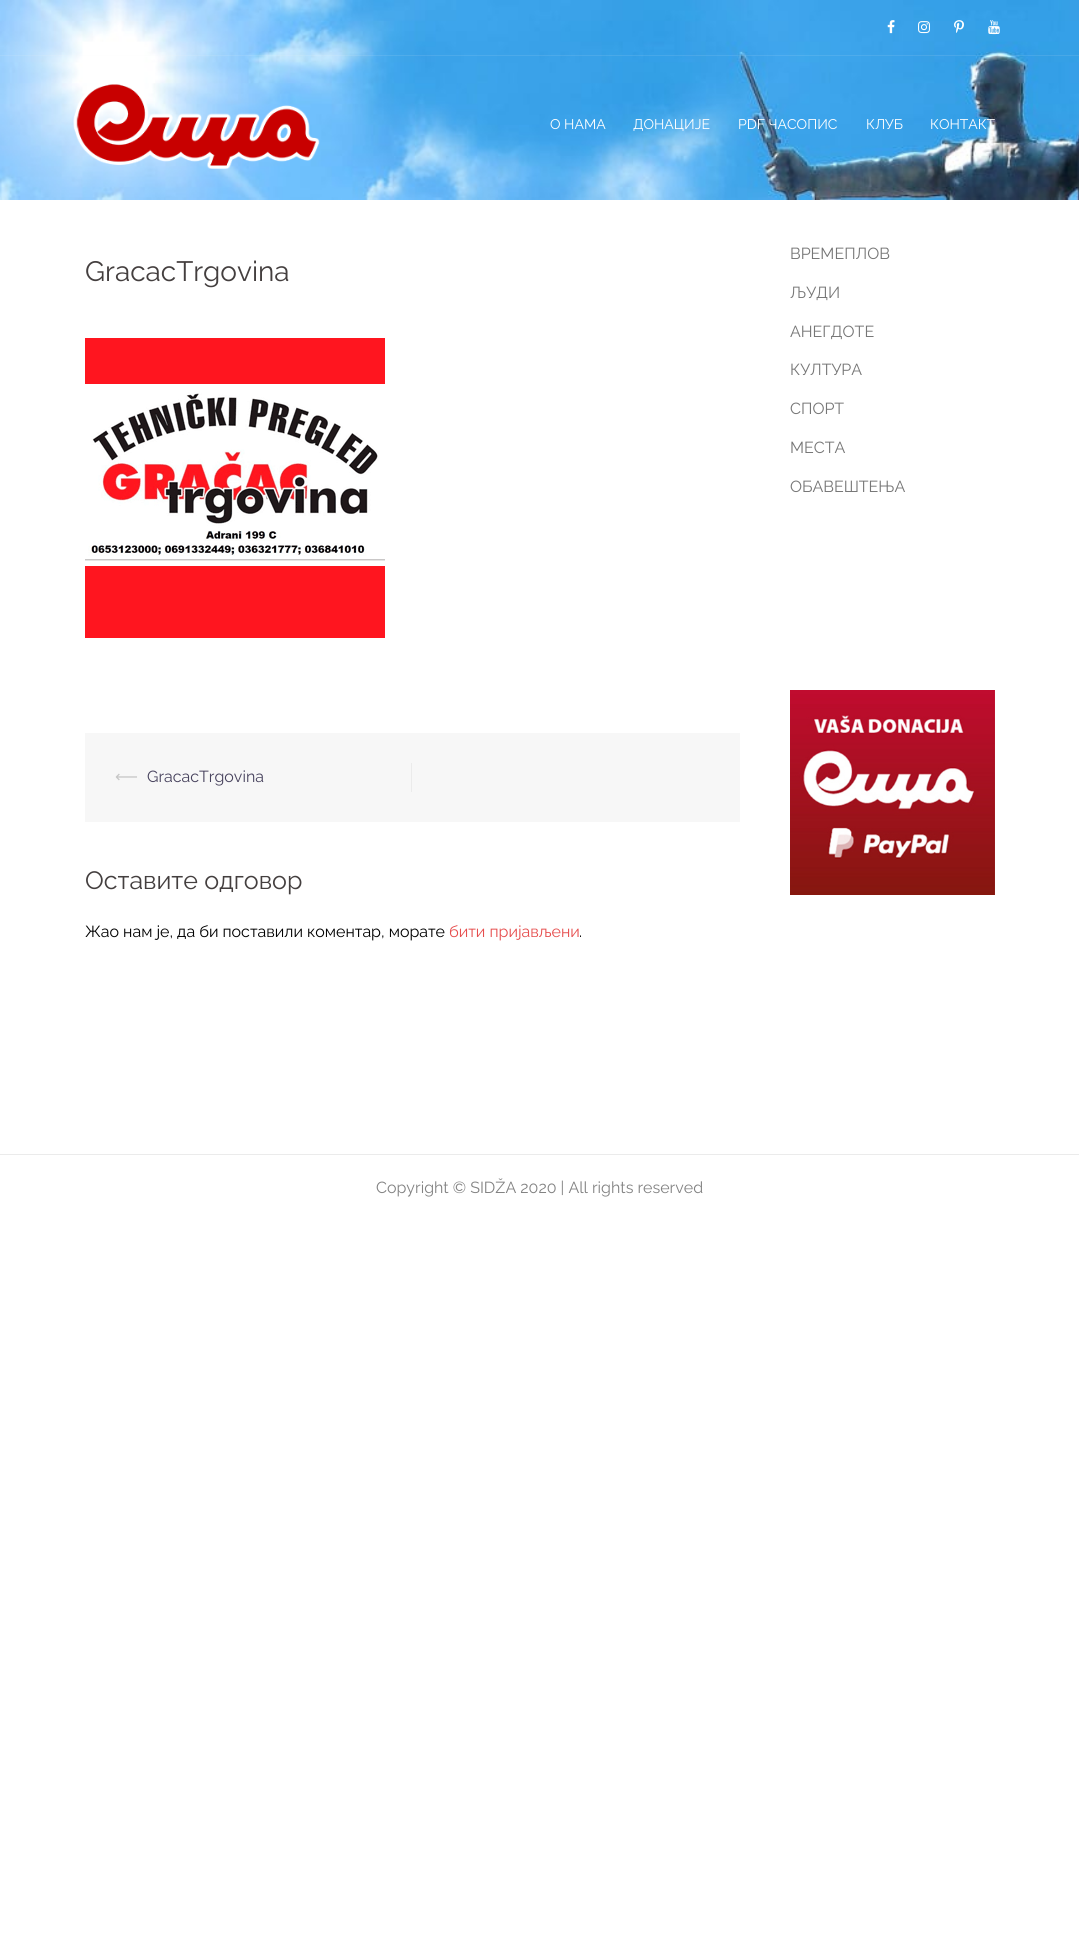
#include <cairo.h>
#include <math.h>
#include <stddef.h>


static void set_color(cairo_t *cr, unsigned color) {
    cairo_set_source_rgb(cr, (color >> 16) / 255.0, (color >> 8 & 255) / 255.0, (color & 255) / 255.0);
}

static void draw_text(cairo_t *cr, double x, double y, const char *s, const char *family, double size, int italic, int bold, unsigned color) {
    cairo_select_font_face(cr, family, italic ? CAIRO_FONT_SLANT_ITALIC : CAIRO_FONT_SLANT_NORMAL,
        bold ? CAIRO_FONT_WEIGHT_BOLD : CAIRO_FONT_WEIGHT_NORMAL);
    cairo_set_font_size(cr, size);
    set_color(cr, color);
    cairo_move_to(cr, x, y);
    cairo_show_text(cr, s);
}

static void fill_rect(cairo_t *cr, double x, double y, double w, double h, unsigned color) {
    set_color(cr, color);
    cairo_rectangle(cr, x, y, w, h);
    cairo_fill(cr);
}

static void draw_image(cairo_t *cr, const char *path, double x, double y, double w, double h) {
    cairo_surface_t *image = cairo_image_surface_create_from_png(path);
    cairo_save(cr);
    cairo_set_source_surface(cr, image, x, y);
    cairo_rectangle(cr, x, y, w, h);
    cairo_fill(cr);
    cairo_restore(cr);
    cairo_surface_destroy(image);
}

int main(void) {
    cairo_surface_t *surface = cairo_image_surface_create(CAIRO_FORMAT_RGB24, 1079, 1934);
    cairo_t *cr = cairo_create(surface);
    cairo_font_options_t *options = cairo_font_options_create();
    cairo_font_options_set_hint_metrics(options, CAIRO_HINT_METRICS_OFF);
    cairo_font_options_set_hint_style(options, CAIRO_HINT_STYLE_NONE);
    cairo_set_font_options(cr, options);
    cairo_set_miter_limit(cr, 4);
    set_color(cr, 0xFFFFFF);
    cairo_paint(cr);
    draw_image(cr, "assets/img1.png", 0, 0, 1079, 200);
    cairo_set_source_rgba(cr, 0.945, 0.945, 0.945, 0.1);
    cairo_rectangle(cr, 0, 55, 1079, 1);
    cairo_fill(cr);
    draw_image(cr, "assets/img2.png", 887, 20, 8, 14);
    draw_image(cr, "assets/img3.png", 918, 21, 12, 13);
    draw_image(cr, "assets/img4.png", 954, 20, 10, 13);
    draw_image(cr, "assets/img5.png", 988, 20, 12, 15);
    draw_image(cr, "assets/img6.png", 73, 84, 247, 85);
    draw_text(cr, 550, 129, "О НАМА", "Raleway", 14, 0, 0, 0xFFFFFF);
    draw_text(cr, 633, 129, "ДОНАЦИЈЕ", "Raleway", 14, 0, 0, 0xFFFFFF);
    draw_text(cr, 738, 129, "PDF ЧАСОПИС", "Raleway", 14, 0, 0, 0xFFFFFF);
    draw_text(cr, 866, 129, "КЛУБ", "Raleway", 14, 0, 0, 0xFFFFFF);
    draw_text(cr, 930, 129, "КОНТАКТ", "Raleway", 14, 0, 0, 0xFFFFFF);
    draw_text(cr, 85, 281, "GracacTrgovina", "Raleway", 28, 0, 0, 0x443F3F);
    draw_image(cr, "assets/img7.png", 85, 338, 300, 300);
    fill_rect(cr, 85, 733, 655, 89, 0xF7F7F7);
    fill_rect(cr, 411, 763, 1, 29, 0xEBEBEB);
    draw_text(cr, 115, 782, "⟵", "DejaVu Sans", 16, 0, 0, 0xC7C7C7);
    draw_text(cr, 147, 782, "GracacTrgovina", "Raleway", 16, 0, 0, 0x47425D);
    draw_text(cr, 85, 889, "Оставите одговор", "Raleway", 25, 0, 0, 0x443F3F);
    draw_text(cr, 85, 937, "Жао нам је, да би поставили коментар, морате", "Raleway", 16, 0, 0, 0x000000);
    draw_text(cr, 449, 937, "бити пријављени", "Raleway", 16, 0, 0, 0xE64E4E);
    draw_text(cr, 579, 937, ".", "Raleway", 16, 0, 0, 0x000000);
    draw_text(cr, 790, 259, "ВРЕМЕПЛОВ", "Raleway", 16, 0, 0, 0x767676);
    draw_text(cr, 790, 298, "ЉУДИ", "Raleway", 16, 0, 0, 0x767676);
    draw_text(cr, 790, 337, "АНЕГДОТЕ", "Raleway", 16, 0, 0, 0x767676);
    draw_text(cr, 790, 375, "КУЛТУРА", "Raleway", 16, 0, 0, 0x767676);
    draw_text(cr, 790, 414, "СПОРТ", "Raleway", 16, 0, 0, 0x767676);
    draw_text(cr, 790, 453, "МЕСТА", "Raleway", 16, 0, 0, 0x767676);
    draw_text(cr, 790, 492, "ОБАВЕШТЕЊА", "Raleway", 16, 0, 0, 0x767676);
    draw_image(cr, "assets/img8.png", 790, 690, 205, 205);
    fill_rect(cr, 0, 1154, 1079, 1, 0xEBEBEB);
    draw_text(cr, 376, 1193, "Copyright © SIDŽA 2020 | All rights reserved", "Raleway", 16, 0, 0, 0x828282);
    cairo_surface_write_to_png(surface, "output.png");
    cairo_font_options_destroy(options);
    cairo_destroy(cr);
    cairo_surface_destroy(surface);
    return 0;
}
